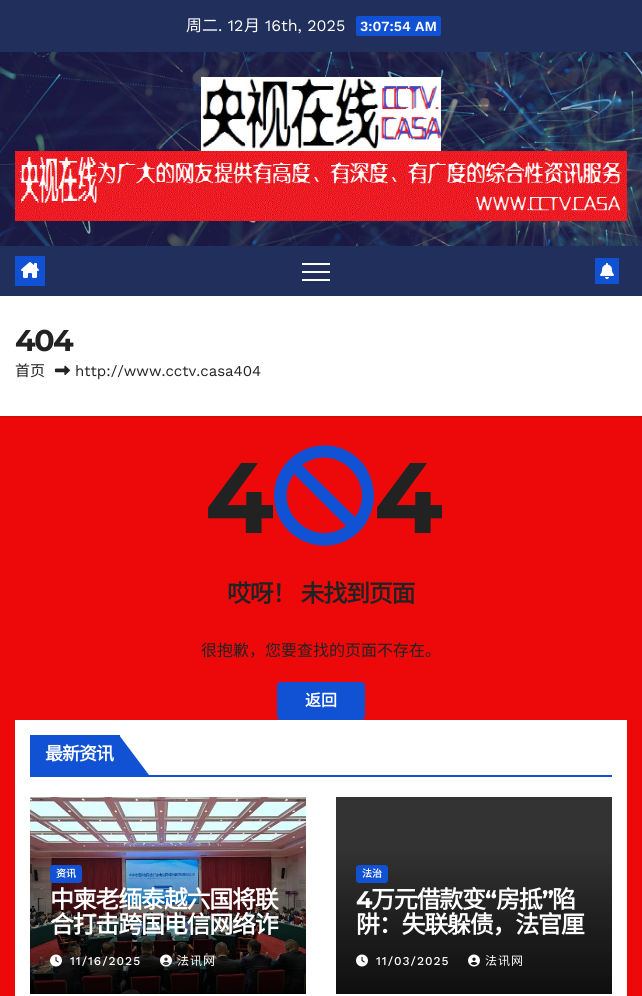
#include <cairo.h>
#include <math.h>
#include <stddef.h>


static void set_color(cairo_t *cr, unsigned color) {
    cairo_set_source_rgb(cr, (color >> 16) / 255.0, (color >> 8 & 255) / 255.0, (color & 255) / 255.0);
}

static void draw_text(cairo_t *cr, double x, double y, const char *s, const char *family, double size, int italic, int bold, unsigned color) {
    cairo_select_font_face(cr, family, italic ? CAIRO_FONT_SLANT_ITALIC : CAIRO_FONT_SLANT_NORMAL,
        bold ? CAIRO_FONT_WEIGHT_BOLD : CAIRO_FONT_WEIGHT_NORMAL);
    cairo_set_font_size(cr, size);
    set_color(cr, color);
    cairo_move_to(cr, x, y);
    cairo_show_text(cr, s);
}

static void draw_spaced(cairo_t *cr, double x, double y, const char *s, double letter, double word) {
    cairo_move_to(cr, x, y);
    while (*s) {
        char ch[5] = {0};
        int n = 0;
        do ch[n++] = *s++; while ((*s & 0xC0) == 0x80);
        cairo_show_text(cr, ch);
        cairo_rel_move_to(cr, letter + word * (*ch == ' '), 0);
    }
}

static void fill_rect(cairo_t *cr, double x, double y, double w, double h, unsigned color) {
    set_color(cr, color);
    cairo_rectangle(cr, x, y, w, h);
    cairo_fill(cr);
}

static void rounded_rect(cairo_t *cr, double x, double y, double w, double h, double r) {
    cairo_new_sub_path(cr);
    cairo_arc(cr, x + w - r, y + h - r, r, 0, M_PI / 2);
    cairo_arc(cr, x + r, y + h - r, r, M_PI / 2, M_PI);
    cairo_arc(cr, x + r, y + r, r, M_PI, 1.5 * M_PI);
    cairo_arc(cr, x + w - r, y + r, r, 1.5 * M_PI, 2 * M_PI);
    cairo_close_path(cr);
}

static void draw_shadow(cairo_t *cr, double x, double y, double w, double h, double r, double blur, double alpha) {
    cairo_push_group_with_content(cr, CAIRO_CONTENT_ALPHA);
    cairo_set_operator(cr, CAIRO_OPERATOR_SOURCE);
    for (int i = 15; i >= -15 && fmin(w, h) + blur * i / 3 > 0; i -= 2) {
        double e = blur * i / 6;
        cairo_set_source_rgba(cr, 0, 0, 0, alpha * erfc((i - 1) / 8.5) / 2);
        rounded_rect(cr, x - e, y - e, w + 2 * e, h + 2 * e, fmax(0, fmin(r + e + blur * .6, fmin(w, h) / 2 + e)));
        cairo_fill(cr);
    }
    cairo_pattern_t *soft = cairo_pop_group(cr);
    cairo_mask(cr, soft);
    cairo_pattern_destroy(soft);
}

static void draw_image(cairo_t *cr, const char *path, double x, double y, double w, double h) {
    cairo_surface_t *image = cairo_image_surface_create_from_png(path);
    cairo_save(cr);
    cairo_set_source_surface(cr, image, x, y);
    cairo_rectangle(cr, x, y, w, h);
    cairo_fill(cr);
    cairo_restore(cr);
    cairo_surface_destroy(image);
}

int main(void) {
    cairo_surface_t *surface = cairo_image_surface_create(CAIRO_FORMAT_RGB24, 642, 996);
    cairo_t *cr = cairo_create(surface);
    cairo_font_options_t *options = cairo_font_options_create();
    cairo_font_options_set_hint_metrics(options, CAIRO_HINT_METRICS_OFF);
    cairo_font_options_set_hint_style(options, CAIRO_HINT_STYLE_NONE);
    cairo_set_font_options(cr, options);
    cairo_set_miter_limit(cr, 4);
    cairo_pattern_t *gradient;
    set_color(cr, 0xED0909);
    cairo_paint(cr);
    fill_rect(cr, 0, 0, 642, 52, 0x202F5B);
    draw_text(cr, 186, 31, "周二", "Noto Sans CJK SC", 16, 0, 0, 0xFFFFFF);
    draw_text(cr, 218, 31, ". 12", "Work Sans", 16, 0, 0, 0xFFFFFF);
    draw_text(cr, 244, 31, "月", "Noto Sans CJK SC", 16, 0, 0, 0xFFFFFF);
    draw_text(cr, 265, 31, "16th, 2025", "Work Sans", 16, 0, 0, 0xFFFFFF);
    set_color(cr, 0x1151D3);
    rounded_rect(cr, 356, 16, 85, 20, 2);
    cairo_fill(cr);
    draw_text(cr, 360, 31, "3:07:54 AM", "Work Sans SemiBold", 14, 0, 0, 0xFFFFFF);
    draw_image(cr, "assets/img1.png", 0, 52, 642, 194);
    draw_image(cr, "assets/img2.png", 201, 77, 240, 74);
    draw_image(cr, "assets/img3.png", 15, 151, 612, 70);
    set_color(cr, 0x000000);
    draw_shadow(cr, 0, 297, 642, 120, 0, 1.5, 0.15);
    fill_rect(cr, 0, 246, 642, 50, 0x202F5B);
    fill_rect(cr, 15, 256, 30, 30, 0x1151D3);
    draw_image(cr, "assets/img4.png", 21, 262, 18, 16);
    fill_rect(cr, 302, 263, 28, 2, 0xFFFFFF);
    fill_rect(cr, 302, 271, 28, 2, 0xFFFFFF);
    fill_rect(cr, 302, 279, 28, 2, 0xFFFFFF);
    fill_rect(cr, 595, 258, 24, 26, 0x1151D3);
    draw_image(cr, "assets/img5.png", 600, 263, 14, 16);
    fill_rect(cr, 0, 296, 642, 120, 0xFFFFFF);
    cairo_select_font_face(cr, "Montserrat", CAIRO_FONT_SLANT_NORMAL, CAIRO_FONT_WEIGHT_BOLD);
    cairo_set_font_size(cr, 30);
    set_color(cr, 0x222222);
    draw_spaced(cr, 15, 351, "404", -1.5, 0);
    draw_text(cr, 15, 376, "首页", "Noto Sans CJK SC", 15, 0, 0, 0x222222);
    draw_image(cr, "assets/img6.png", 55, 365, 15, 10);
    draw_text(cr, 75, 376, "http://www.cctv.casa404", "Work Sans", 15, 0, 0, 0x222222);
    cairo_select_font_face(cr, "Montserrat", CAIRO_FONT_SLANT_NORMAL, CAIRO_FONT_WEIGHT_BOLD);
    cairo_set_font_size(cr, 100);
    draw_spaced(cr, 205, 533, "4", -5, 0);
    set_color(cr, 0x1151D3);
    cairo_new_path(cr);
    cairo_move_to(cr, 346, 526);
    cairo_line_to(cr, 294, 474);
    cairo_curve_to(cr, 269, 508, 312, 550, 346, 526);
    cairo_close_path(cr);
    cairo_move_to(cr, 355, 517);
    cairo_curve_to(cr, 379, 483, 336, 440, 302, 465);
    cairo_close_path(cr);
    cairo_move_to(cr, 274, 496);
    cairo_curve_to(cr, 275, 448, 334, 427, 364, 465);
    cairo_curve_to(cr, 370, 474, 374, 485, 374, 496);
    cairo_curve_to(cr, 374, 506, 370, 517, 364, 526);
    cairo_curve_to(cr, 334, 564, 275, 543, 274, 496);
    cairo_close_path(cr);
    cairo_fill(cr);
    set_color(cr, 0x222222);
    draw_spaced(cr, 374, 533, "4", -5, 0);
    cairo_select_font_face(cr, "Noto Sans CJK SC", CAIRO_FONT_SLANT_NORMAL, CAIRO_FONT_WEIGHT_BOLD);
    cairo_set_font_size(cr, 24);
    draw_spaced(cr, 227, 602, "哎呀！ 未找到页面", -1.25, 1);
    draw_text(cr, 201, 656, "很抱歉，您要查找的页面不存在。", "Noto Sans CJK SC", 16, 0, 0, 0x222222);
    set_color(cr, 0x1151D3);
    rounded_rect(cr, 278, 683, 86, 36, 3);
    cairo_fill_preserve(cr);
    cairo_stroke(cr);
    draw_text(cr, 305, 706, "返回", "Noto Sans CJK SC", 16, 0, 1, 0xFFFFFF);
    fill_rect(cr, 15, 720, 612, 276, 0xFFFFFF);
    fill_rect(cr, 30, 775, 582, 2, 0x1151D3);
    fill_rect(cr, 30, 735, 90, 40, 0x1151D3);
    cairo_set_font_size(cr, 18);
    set_color(cr, 0xFFFFFF);
    draw_spaced(cr, 45, 760, "最新资讯", -1, 0);
    set_color(cr, 0x1151D3);
    cairo_new_path(cr);
    cairo_move_to(cr, 119, 775);
    cairo_line_to(cr, 119, 735);
    cairo_line_to(cr, 149, 775);
    cairo_close_path(cr);
    cairo_fill(cr);
    draw_image(cr, "assets/img7.png", 30, 797, 276, 197);
    rounded_rect(cr, 50, 865, 32, 18, 3);
    cairo_fill(cr);
    draw_text(cr, 56, 877, "资讯", "Noto Sans CJK SC", 10, 0, 1, 0xFFFFFF);
    cairo_set_font_size(cr, 24);
    draw_spaced(cr, 50, 908, "中柬老缅泰越六国将联", -1.25, 0);
    draw_spaced(cr, 50, 933, "合打击跨国电信网络诈", -1.25, 0);
    draw_image(cr, "assets/img8.png", 50, 954, 12, 13);
    cairo_select_font_face(cr, "Work Sans Medium", CAIRO_FONT_SLANT_NORMAL, CAIRO_FONT_WEIGHT_NORMAL);
    cairo_set_font_size(cr, 12);
    draw_spaced(cr, 70, 965, "11/16/2025", 1, 0);
    draw_image(cr, "assets/img9.png", 160, 954, 12, 13);
    cairo_select_font_face(cr, "Noto Sans CJK SC", CAIRO_FONT_SLANT_NORMAL, CAIRO_FONT_WEIGHT_NORMAL);
    draw_spaced(cr, 177, 965, "法讯网", 1, 0);
    fill_rect(cr, 336, 797, 276, 50, 0x333333);
    gradient = cairo_pattern_create_linear(474, 847, 474, 994);
    cairo_pattern_add_color_stop_rgba(gradient, 0, 0.2, 0.2, 0.2, 1);
    cairo_pattern_add_color_stop_rgba(gradient, 0.5, 0.122, 0.122, 0.122, 1);
    cairo_pattern_add_color_stop_rgba(gradient, 1, 0.059, 0.059, 0.059, 1);
    cairo_set_source(cr, gradient);
    cairo_pattern_destroy(gradient);
    cairo_rectangle(cr, 336, 847, 276, 147);
    cairo_fill(cr);
    set_color(cr, 0x1151D3);
    rounded_rect(cr, 356, 865, 32, 18, 3);
    cairo_fill(cr);
    draw_text(cr, 362, 877, "法治", "Noto Sans CJK SC", 10, 0, 1, 0xFFFFFF);
    cairo_select_font_face(cr, "Montserrat", CAIRO_FONT_SLANT_NORMAL, CAIRO_FONT_WEIGHT_BOLD);
    cairo_set_font_size(cr, 24);
    draw_spaced(cr, 356, 908, "4", -1.25, 0);
    cairo_select_font_face(cr, "Noto Sans CJK SC", CAIRO_FONT_SLANT_NORMAL, CAIRO_FONT_WEIGHT_BOLD);
    draw_spaced(cr, 371, 908, "万元借款变", -1.25, 0);
    cairo_select_font_face(cr, "Montserrat", CAIRO_FONT_SLANT_NORMAL, CAIRO_FONT_WEIGHT_BOLD);
    draw_spaced(cr, 485, 908, "“", -1.25, 0);
    cairo_select_font_face(cr, "Noto Sans CJK SC", CAIRO_FONT_SLANT_NORMAL, CAIRO_FONT_WEIGHT_BOLD);
    draw_spaced(cr, 496, 908, "房抵", -1.25, 0);
    cairo_select_font_face(cr, "Montserrat", CAIRO_FONT_SLANT_NORMAL, CAIRO_FONT_WEIGHT_BOLD);
    draw_spaced(cr, 542, 908, "”", -1.25, 0);
    cairo_select_font_face(cr, "Noto Sans CJK SC", CAIRO_FONT_SLANT_NORMAL, CAIRO_FONT_WEIGHT_BOLD);
    draw_spaced(cr, 552, 908, "陷", -1.25, 0);
    draw_spaced(cr, 356, 933, "阱：失联躲债，法官厘", -1.25, 0);
    draw_image(cr, "assets/img10.png", 356, 954, 12, 13);
    cairo_select_font_face(cr, "Work Sans Medium", CAIRO_FONT_SLANT_NORMAL, CAIRO_FONT_WEIGHT_NORMAL);
    cairo_set_font_size(cr, 12);
    draw_spaced(cr, 376, 965, "11/03/2025", 1, 0);
    draw_image(cr, "assets/img11.png", 468, 954, 12, 13);
    cairo_select_font_face(cr, "Noto Sans CJK SC", CAIRO_FONT_SLANT_NORMAL, CAIRO_FONT_WEIGHT_NORMAL);
    draw_spaced(cr, 485, 965, "法讯网", 1, 0);
    cairo_surface_write_to_png(surface, "output.png");
    cairo_font_options_destroy(options);
    cairo_destroy(cr);
    cairo_surface_destroy(surface);
    return 0;
}
